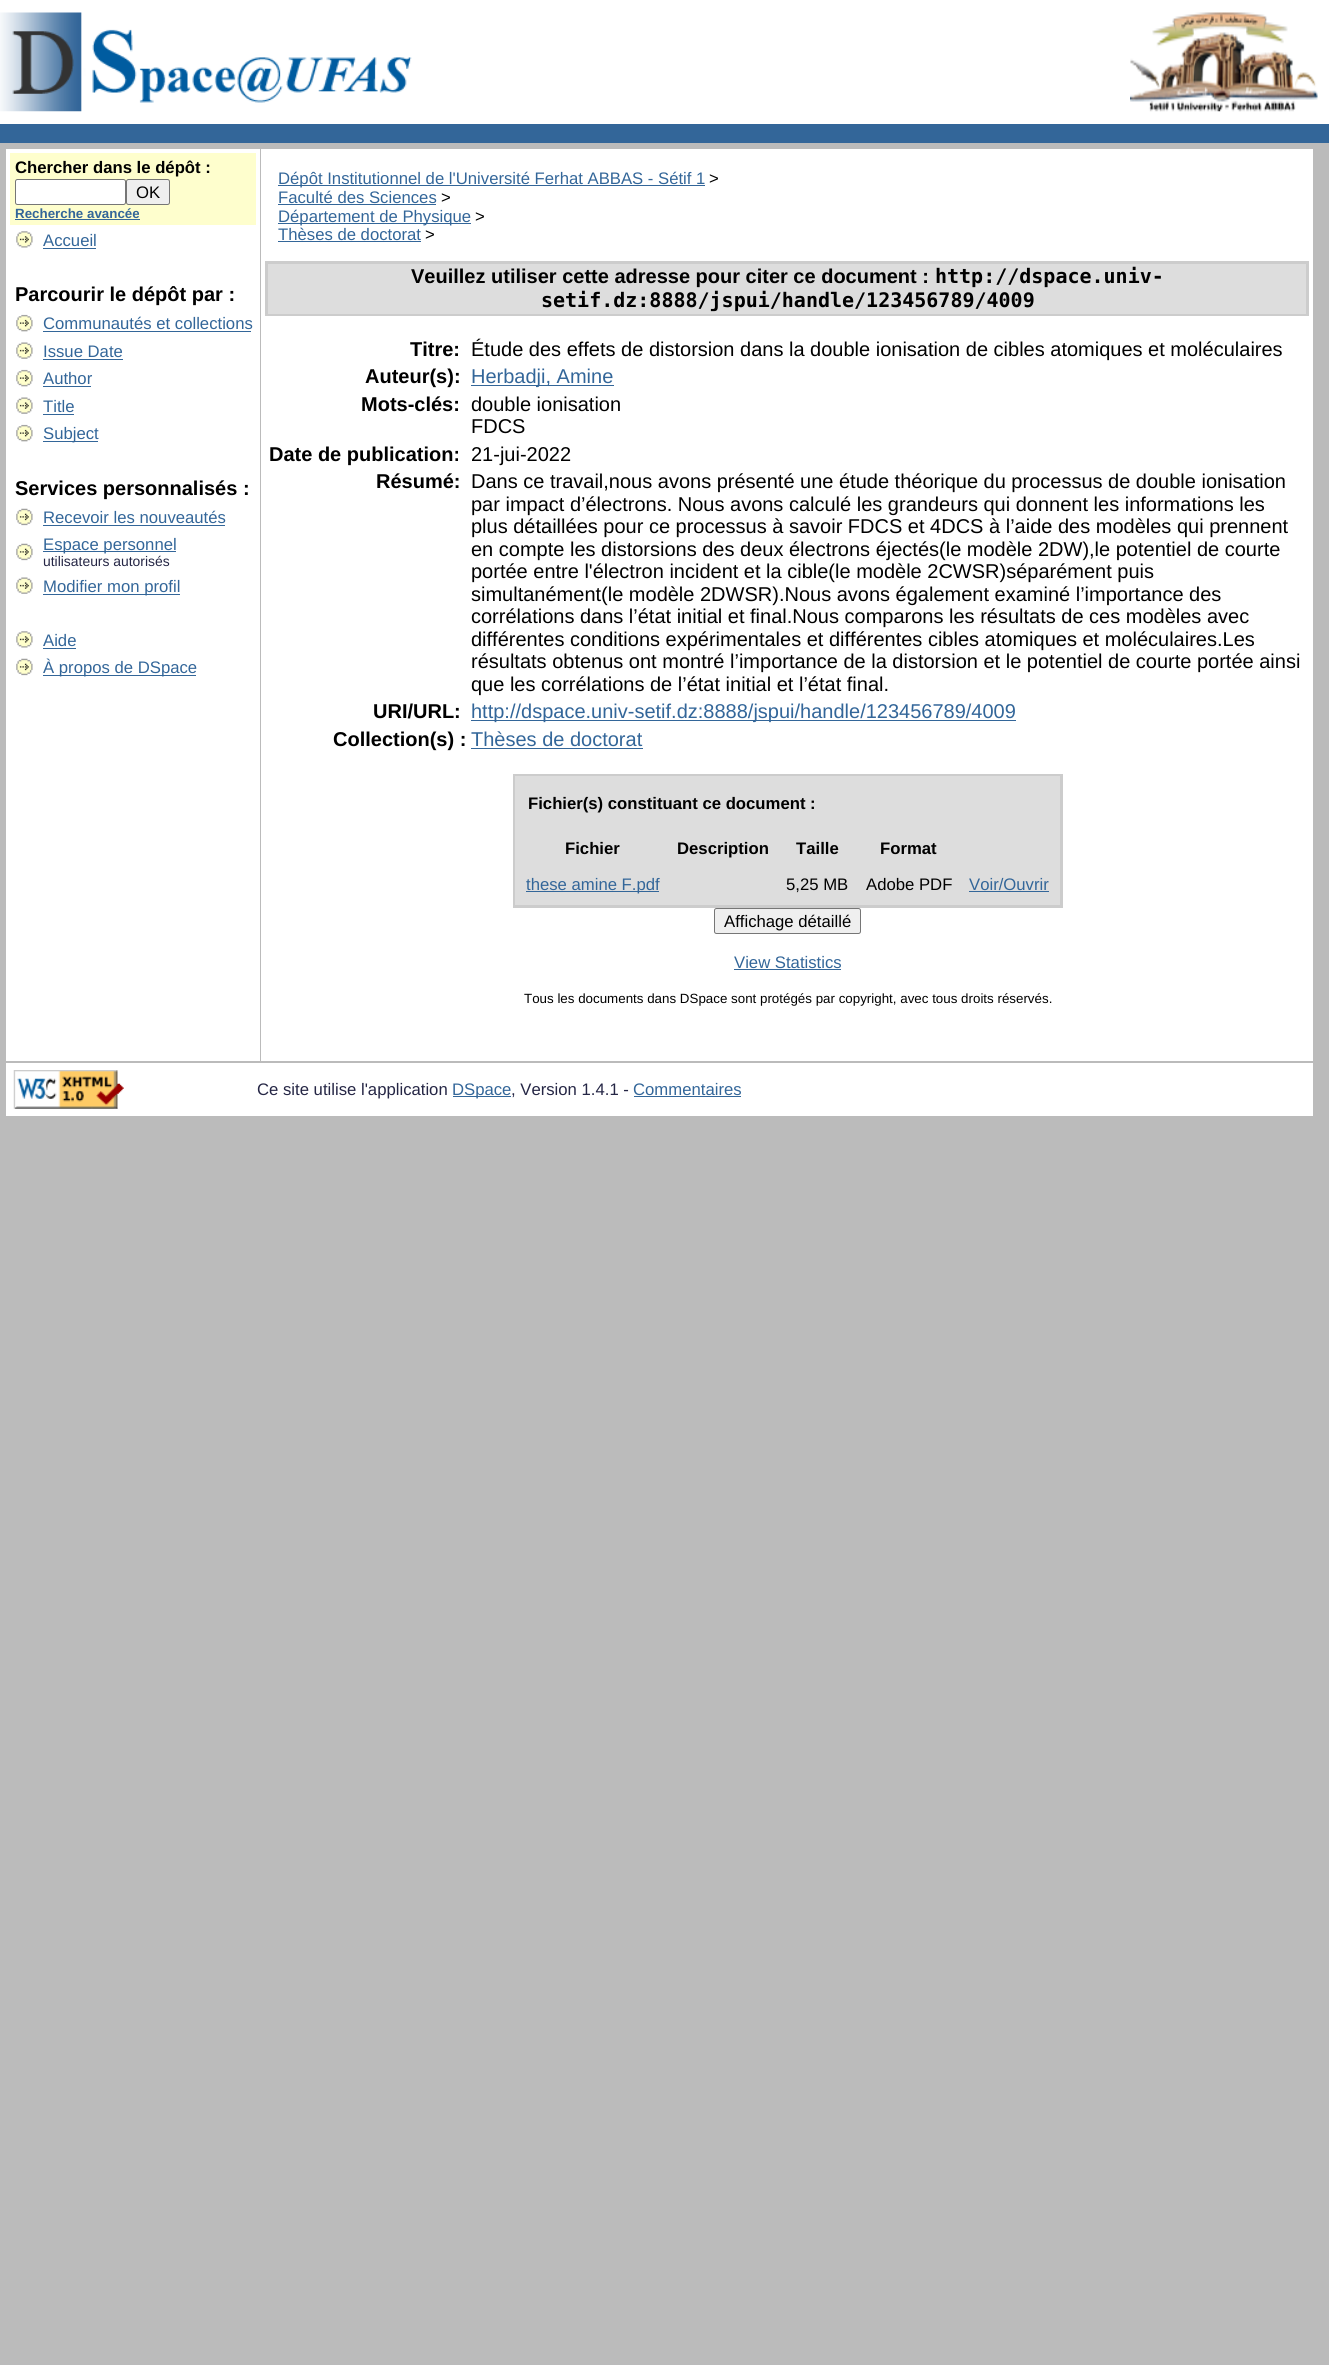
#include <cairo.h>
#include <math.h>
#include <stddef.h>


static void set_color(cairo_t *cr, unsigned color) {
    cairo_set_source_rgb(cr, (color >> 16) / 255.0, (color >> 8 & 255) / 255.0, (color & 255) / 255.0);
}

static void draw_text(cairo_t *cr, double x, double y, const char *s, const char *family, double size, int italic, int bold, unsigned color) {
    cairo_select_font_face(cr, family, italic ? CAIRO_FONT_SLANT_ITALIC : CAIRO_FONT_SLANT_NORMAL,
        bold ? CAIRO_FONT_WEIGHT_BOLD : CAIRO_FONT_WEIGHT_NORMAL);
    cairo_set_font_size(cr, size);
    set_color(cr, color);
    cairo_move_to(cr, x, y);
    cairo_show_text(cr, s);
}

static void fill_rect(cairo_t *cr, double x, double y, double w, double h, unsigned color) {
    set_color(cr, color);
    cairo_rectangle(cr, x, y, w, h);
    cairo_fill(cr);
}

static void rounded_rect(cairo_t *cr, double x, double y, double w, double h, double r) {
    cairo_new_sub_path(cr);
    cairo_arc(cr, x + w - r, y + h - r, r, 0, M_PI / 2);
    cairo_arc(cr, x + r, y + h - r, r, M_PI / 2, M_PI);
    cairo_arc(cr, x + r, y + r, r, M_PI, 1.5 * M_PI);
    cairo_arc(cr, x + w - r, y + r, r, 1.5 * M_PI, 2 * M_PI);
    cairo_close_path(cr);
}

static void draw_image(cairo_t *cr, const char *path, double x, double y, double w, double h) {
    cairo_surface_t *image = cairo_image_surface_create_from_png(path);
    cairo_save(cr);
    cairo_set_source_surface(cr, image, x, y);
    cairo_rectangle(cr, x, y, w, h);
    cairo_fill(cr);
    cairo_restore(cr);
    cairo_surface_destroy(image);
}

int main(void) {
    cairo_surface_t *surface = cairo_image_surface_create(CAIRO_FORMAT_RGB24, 1329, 2365);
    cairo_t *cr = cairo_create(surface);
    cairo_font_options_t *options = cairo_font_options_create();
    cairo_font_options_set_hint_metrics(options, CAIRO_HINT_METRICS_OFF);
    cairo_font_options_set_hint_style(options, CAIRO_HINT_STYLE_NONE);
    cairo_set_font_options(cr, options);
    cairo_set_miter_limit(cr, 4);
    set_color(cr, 0xBBBBBB);
    cairo_paint(cr);
    fill_rect(cr, 0, 0, 1329, 124, 0xFFFFFF);
    draw_image(cr, "assets/img1.png", 0, 12, 412, 100);
    draw_image(cr, "assets/img2.png", 1130, 12, 188, 100);
    fill_rect(cr, 0, 124, 1329, 19, 0x336699);
    fill_rect(cr, 6, 149, 254, 912, 0xFFFFFF);
    fill_rect(cr, 10, 153, 246, 72, 0xFEFECD);
    draw_text(cr, 15, 173, "Chercher dans le dépôt :", "Liberation Sans", 16.7, 0, 1, 0x000000);
    set_color(cr, 0xFFFFFF);
    rounded_rect(cr, 15.5, 179.5, 110, 25, 2);
    cairo_fill_preserve(cr);
    set_color(cr, 0x767676);
    cairo_set_line_width(cr, 1);
    cairo_stroke(cr);
    set_color(cr, 0xEFEFEF);
    rounded_rect(cr, 126.5, 179.5, 43, 25, 2);
    cairo_fill_preserve(cr);
    set_color(cr, 0x767676);
    cairo_stroke(cr);
    draw_text(cr, 136, 198, "OK", "Liberation Sans", 16.7, 0, 0, 0x000000);
    draw_text(cr, 15, 218, "Recherche avancée", "Liberation Sans", 13.35, 0, 1, 0x336699);
    fill_rect(cr, 15, 219, 125, 1, 0x336699);
    draw_image(cr, "assets/img3.png", 16, 231, 17, 17);
    draw_text(cr, 43, 246, "Accueil", "Liberation Sans", 16.7, 0, 0, 0x336699);
    fill_rect(cr, 43, 248, 53, 1, 0x336699);
    draw_text(cr, 15, 301, "Parcourir le dépôt par :", "Liberation Sans", 20, 0, 1, 0x000000);
    draw_image(cr, "assets/img4.png", 16, 314, 17, 18);
    draw_text(cr, 43, 329, "Communautés et collections", "Liberation Sans", 16.7, 0, 0, 0x336699);
    fill_rect(cr, 43, 331, 208, 1, 0x336699);
    draw_image(cr, "assets/img5.png", 16, 342, 17, 17);
    draw_text(cr, 43, 357, "Issue Date", "Liberation Sans", 16.7, 0, 0, 0x336699);
    fill_rect(cr, 43, 359, 80, 1, 0x336699);
    draw_image(cr, "assets/img4.png", 16, 369, 17, 18);
    draw_text(cr, 43, 384, "Author", "Liberation Sans", 16.7, 0, 0, 0x336699);
    fill_rect(cr, 43, 386, 48, 1, 0x336699);
    draw_image(cr, "assets/img5.png", 16, 397, 17, 17);
    draw_text(cr, 43, 412, "Title", "Liberation Sans", 16.7, 0, 0, 0x336699);
    fill_rect(cr, 43, 414, 31, 1, 0x336699);
    draw_image(cr, "assets/img4.png", 16, 424, 17, 18);
    fill_rect(cr, 43, 441, 55, 1, 0x336699);
    draw_text(cr, 43, 439, "Subject", "Liberation Sans", 16.7, 0, 0, 0x336699);
    draw_text(cr, 15, 495, "Services personnalisés :", "Liberation Sans", 20, 0, 1, 0x000000);
    draw_image(cr, "assets/img6.png", 16, 508, 17, 18);
    draw_text(cr, 43, 523, "Recevoir les nouveautés", "Liberation Sans", 16.7, 0, 0, 0x336699);
    fill_rect(cr, 43, 525, 182, 1, 0x336699);
    draw_image(cr, "assets/img6.png", 16, 543, 17, 18);
    fill_rect(cr, 43, 551, 133, 1, 0x336699);
    draw_text(cr, 43, 550, "Espace personnel", "Liberation Sans", 16.7, 0, 0, 0x336699);
    draw_text(cr, 43, 566, "utilisateurs autorisés", "Liberation Sans", 13.9, 0, 0, 0x252645);
    draw_image(cr, "assets/img7.png", 16, 577, 17, 17);
    fill_rect(cr, 43, 594, 137, 1, 0x336699);
    draw_text(cr, 43, 592, "Modifier mon profil", "Liberation Sans", 16.7, 0, 0, 0x336699);
    draw_image(cr, "assets/img3.png", 16, 631, 17, 17);
    draw_text(cr, 43, 646, "Aide", "Liberation Sans", 16.7, 0, 0, 0x336699);
    fill_rect(cr, 43, 648, 33, 1, 0x336699);
    draw_image(cr, "assets/img6.png", 16, 658, 17, 18);
    fill_rect(cr, 43, 675, 153, 1, 0x336699);
    draw_text(cr, 43, 673, "À propos de DSpace", "Liberation Sans", 16.7, 0, 0, 0x336699);
    fill_rect(cr, 261, 149, 1052, 912, 0xFFFFFF);
    fill_rect(cr, 278, 185, 427, 1, 0x336699);
    draw_text(cr, 278, 184, "Dépôt Institutionnel de l'Université Ferhat ABBAS - Sétif 1", "Liberation Sans", 16.7, 0, 0, 0x336699);
    draw_text(cr, 709, 184, ">", "Liberation Sans", 16.7, 0, 0, 0x000000);
    draw_text(cr, 278, 203, "Faculté des Sciences", "Liberation Sans", 16.7, 0, 0, 0x336699);
    fill_rect(cr, 278, 204, 158, 1, 0x336699);
    draw_text(cr, 441, 203, ">", "Liberation Sans", 16.7, 0, 0, 0x000000);
    fill_rect(cr, 278, 223, 193, 1, 0x336699);
    draw_text(cr, 278, 222, "Département de Physique", "Liberation Sans", 16.7, 0, 0, 0x336699);
    draw_text(cr, 475, 222, ">", "Liberation Sans", 16.7, 0, 0, 0x000000);
    draw_text(cr, 278, 240, "Thèses de doctorat", "Liberation Sans", 16.7, 0, 0, 0x336699);
    fill_rect(cr, 278, 241, 143, 1, 0x336699);
    draw_text(cr, 425, 240, ">", "Liberation Sans", 16.7, 0, 0, 0x000000);
    fill_rect(cr, 265, 261, 1044, 55, 0xCCCCCC);
    fill_rect(cr, 268, 264, 1038, 50, 0xDDDDDD);
    draw_text(cr, 411, 283, "Veuillez utiliser cette adresse pour citer ce document :", "Liberation Sans", 20, 0, 1, 0x000000);
    draw_text(cr, 935, 283, "http://dspace.univ-", "DejaVu Sans Mono", 20, 0, 1, 0x000000);
    draw_text(cr, 541, 307, "setif.dz:8888/jspui/handle/123456789/4009", "DejaVu Sans Mono", 20, 0, 1, 0x000000);
    draw_text(cr, 410, 356, "Titre:", "Liberation Sans", 20, 0, 1, 0x000000);
    draw_text(cr, 471, 356, "Étude des effets de distorsion dans la double ionisation de cibles atomiques et moléculaires", "Liberation Sans", 20, 0, 0, 0x000000);
    draw_text(cr, 365, 383, "Auteur(s):", "Liberation Sans", 20, 0, 1, 0x000000);
    fill_rect(cr, 471, 385, 143, 1, 0x336699);
    draw_text(cr, 471, 383, "Herbadji, Amine", "Liberation Sans", 20, 0, 0, 0x336699);
    draw_text(cr, 361, 411, "Mots-clés:", "Liberation Sans", 20, 0, 1, 0x000000);
    draw_text(cr, 471, 411, "double ionisation", "Liberation Sans", 20, 0, 0, 0x000000);
    draw_text(cr, 471, 433, "FDCS", "Liberation Sans", 20, 0, 0, 0x000000);
    draw_text(cr, 269, 461, "Date de publication:", "Liberation Sans", 20, 0, 1, 0x000000);
    draw_text(cr, 471, 461, "21-jui-2022", "Liberation Sans", 20, 0, 0, 0x000000);
    draw_text(cr, 376, 488, "Résumé:", "Liberation Sans", 20, 0, 1, 0x000000);
    draw_text(cr, 471, 488, "Dans ce travail,nous avons présenté une étude théorique du processus de double ionisation", "Liberation Sans", 20, 0, 0, 0x000000);
    draw_text(cr, 471, 511, "par impact d’électrons. Nous avons calculé les grandeurs qui donnent les informations les", "Liberation Sans", 20, 0, 0, 0x000000);
    draw_text(cr, 471, 533, "plus détaillées pour ce processus à savoir FDCS et 4DCS à l’aide des modèles qui prennent", "Liberation Sans", 20, 0, 0, 0x000000);
    draw_text(cr, 471, 556, "en compte les distorsions des deux électrons éjectés(le modèle 2DW),le potentiel de courte", "Liberation Sans", 20, 0, 0, 0x000000);
    draw_text(cr, 471, 578, "portée entre l'électron incident et la cible(le modèle 2CWSR)séparément puis", "Liberation Sans", 20, 0, 0, 0x000000);
    draw_text(cr, 471, 601, "simultanément(le modèle 2DWSR).Nous avons également examiné l’importance des", "Liberation Sans", 20, 0, 0, 0x000000);
    draw_text(cr, 471, 623, "corrélations dans l’état initial et final.Nous comparons les résultats de ces modèles avec", "Liberation Sans", 20, 0, 0, 0x000000);
    draw_text(cr, 471, 646, "différentes conditions expérimentales et différentes cibles atomiques et moléculaires.Les", "Liberation Sans", 20, 0, 0, 0x000000);
    draw_text(cr, 471, 668, "résultats obtenus ont montré l’importance de la distorsion et le potentiel de courte portée ainsi", "Liberation Sans", 20, 0, 0, 0x000000);
    draw_text(cr, 471, 691, "que les corrélations de l’état initial et l’état final.", "Liberation Sans", 20, 0, 0, 0x000000);
    draw_text(cr, 373, 718, "URI/URL:", "Liberation Sans", 20, 0, 1, 0x000000);
    fill_rect(cr, 471, 720, 545, 1, 0x336699);
    draw_text(cr, 471, 718, "http://dspace.univ-setif.dz:8888/jspui/handle/123456789/4009", "Liberation Sans", 20, 0, 0, 0x336699);
    draw_text(cr, 333, 746, "Collection(s) :", "Liberation Sans", 20, 0, 1, 0x000000);
    draw_text(cr, 471, 746, "Thèses de doctorat", "Liberation Sans", 20, 0, 0, 0x336699);
    fill_rect(cr, 471, 748, 172, 1, 0x336699);
    fill_rect(cr, 513, 774, 550, 134, 0xCCCCCC);
    fill_rect(cr, 515, 776, 545, 129, 0xDDDDDD);
    draw_text(cr, 528, 809, "Fichier(s) constituant ce document :", "Liberation Sans", 16.7, 0, 1, 0x000000);
    draw_text(cr, 565, 854, "Fichier", "Liberation Sans", 16.7, 0, 1, 0x000000);
    draw_text(cr, 677, 854, "Description", "Liberation Sans", 16.7, 0, 1, 0x000000);
    draw_text(cr, 796, 854, "Taille", "Liberation Sans", 16.7, 0, 1, 0x000000);
    draw_text(cr, 880, 854, "Format", "Liberation Sans", 16.7, 0, 1, 0x000000);
    fill_rect(cr, 526, 891, 133, 1, 0x336699);
    draw_text(cr, 526, 890, "these amine F.pdf", "Liberation Sans", 16.7, 0, 0, 0x336699);
    draw_text(cr, 786, 890, "5,25 MB", "Liberation Sans", 16.7, 0, 0, 0x000000);
    draw_text(cr, 866, 890, "Adobe PDF", "Liberation Sans", 16.7, 0, 0, 0x000000);
    draw_text(cr, 969, 890, "Voir/Ouvrir", "Liberation Sans", 16.7, 0, 0, 0x336699);
    fill_rect(cr, 969, 891, 80, 1, 0x336699);
    set_color(cr, 0xEFEFEF);
    rounded_rect(cr, 714.5, 908.5, 146, 25, 2);
    cairo_fill_preserve(cr);
    set_color(cr, 0x767676);
    cairo_stroke(cr);
    draw_text(cr, 724, 927, "Affichage détaillé", "Liberation Sans", 16.7, 0, 0, 0x000000);
    draw_text(cr, 734, 968, "View Statistics", "Liberation Sans", 16.7, 0, 0, 0x336699);
    fill_rect(cr, 734, 969, 107, 1, 0x336699);
    draw_text(cr, 524, 1003, "Tous les documents dans DSpace sont protégés par copyright, avec tous droits réservés.", "Liberation Sans", 13.35, 0, 0, 0x000000);
    fill_rect(cr, 6, 1063, 1307, 53, 0xFFFFFF);
    draw_image(cr, "assets/img8.png", 13, 1070, 111, 39);
    draw_text(cr, 257, 1095, "Ce site utilise l'application", "Liberation Sans", 16.7, 0, 0, 0x252645);
    fill_rect(cr, 453, 1096, 58, 1, 0x336699);
    draw_text(cr, 452, 1095, "DSpace", "Liberation Sans", 16.7, 0, 0, 0x336699);
    draw_text(cr, 511, 1095, ", Version 1.4.1 -", "Liberation Sans", 16.7, 0, 0, 0x252645);
    draw_text(cr, 633, 1095, "Commentaires", "Liberation Sans", 16.7, 0, 0, 0x336699);
    fill_rect(cr, 634, 1096, 107, 1, 0x336699);
    cairo_surface_write_to_png(surface, "output.png");
    cairo_font_options_destroy(options);
    cairo_destroy(cr);
    cairo_surface_destroy(surface);
    return 0;
}
